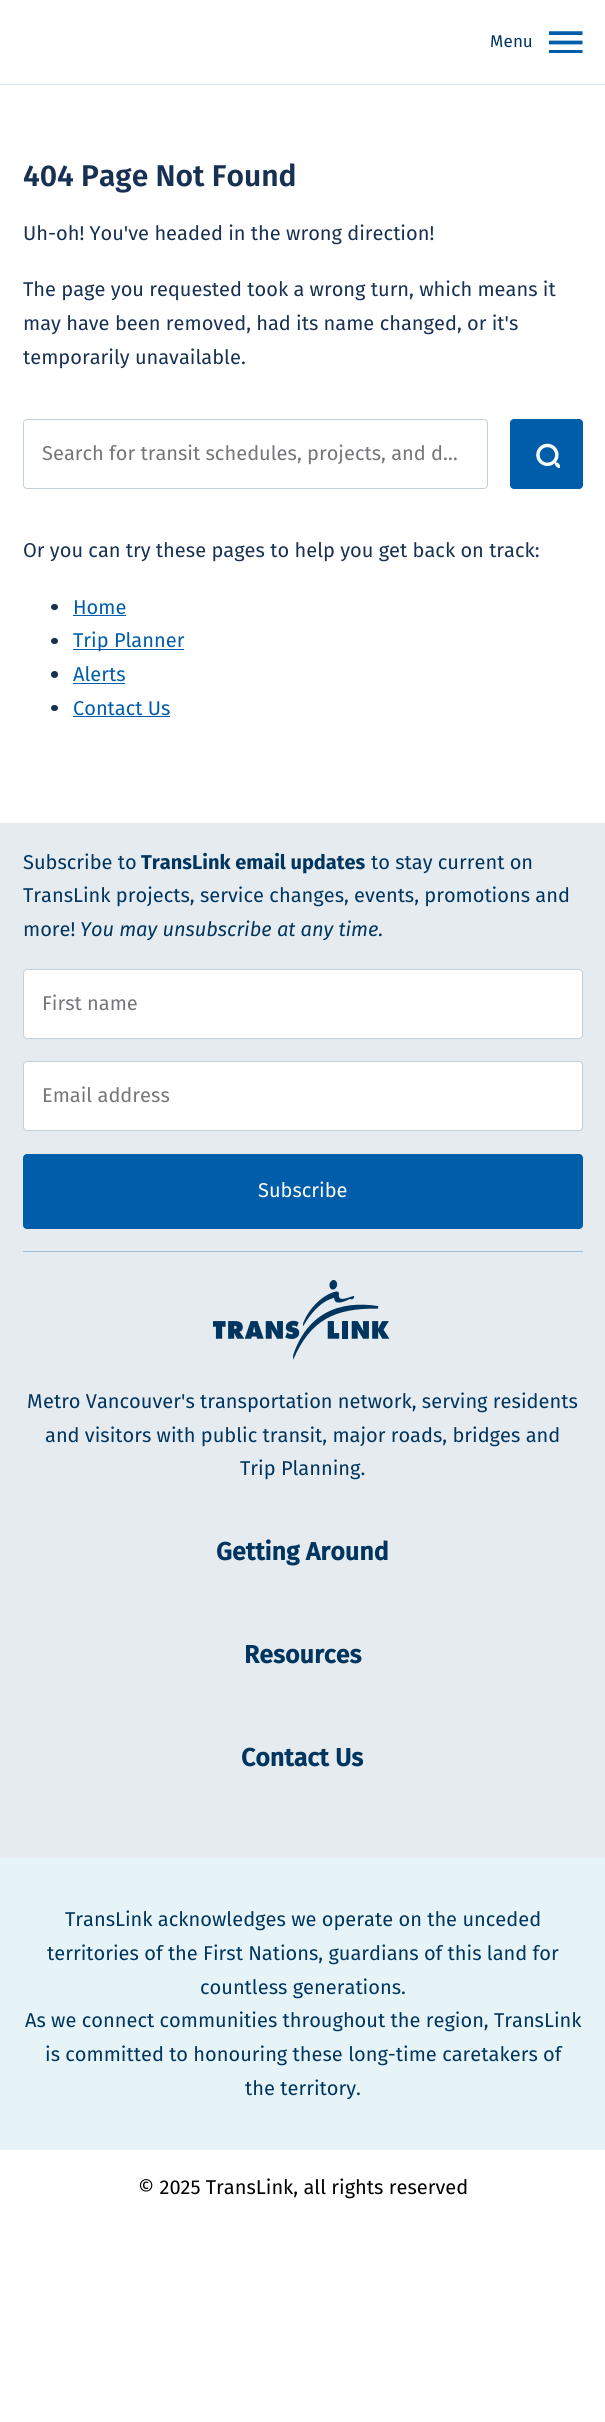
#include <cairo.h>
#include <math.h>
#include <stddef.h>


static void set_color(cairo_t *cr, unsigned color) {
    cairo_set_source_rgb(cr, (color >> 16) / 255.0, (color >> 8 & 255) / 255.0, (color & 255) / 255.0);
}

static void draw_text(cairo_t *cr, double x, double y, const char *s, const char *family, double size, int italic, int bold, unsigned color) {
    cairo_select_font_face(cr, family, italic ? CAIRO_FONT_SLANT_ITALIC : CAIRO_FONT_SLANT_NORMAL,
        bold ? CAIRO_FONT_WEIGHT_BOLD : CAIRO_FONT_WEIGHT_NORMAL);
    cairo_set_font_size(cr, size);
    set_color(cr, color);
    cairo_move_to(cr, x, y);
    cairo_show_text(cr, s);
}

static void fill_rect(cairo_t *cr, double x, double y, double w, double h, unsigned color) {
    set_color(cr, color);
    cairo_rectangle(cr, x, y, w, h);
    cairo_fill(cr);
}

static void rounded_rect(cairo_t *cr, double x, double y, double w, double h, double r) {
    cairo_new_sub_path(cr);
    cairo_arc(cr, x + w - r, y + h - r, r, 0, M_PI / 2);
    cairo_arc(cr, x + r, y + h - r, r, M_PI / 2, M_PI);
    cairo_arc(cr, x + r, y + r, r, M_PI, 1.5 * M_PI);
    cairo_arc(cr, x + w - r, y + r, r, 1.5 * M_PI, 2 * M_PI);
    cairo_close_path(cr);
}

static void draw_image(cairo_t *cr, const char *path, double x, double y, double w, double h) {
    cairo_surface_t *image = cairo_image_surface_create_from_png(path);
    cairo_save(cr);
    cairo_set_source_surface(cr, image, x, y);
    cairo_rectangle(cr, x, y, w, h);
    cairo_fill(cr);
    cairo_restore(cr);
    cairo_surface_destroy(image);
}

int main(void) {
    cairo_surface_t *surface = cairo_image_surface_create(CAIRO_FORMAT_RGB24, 605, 2422);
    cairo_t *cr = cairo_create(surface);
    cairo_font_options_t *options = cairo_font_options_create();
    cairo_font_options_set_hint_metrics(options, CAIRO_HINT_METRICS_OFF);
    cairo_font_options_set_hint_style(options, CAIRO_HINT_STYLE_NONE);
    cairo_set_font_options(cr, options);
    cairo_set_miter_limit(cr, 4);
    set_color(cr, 0xFFFFFF);
    cairo_paint(cr);
    fill_rect(cr, 0, 84, 605, 1, 0xDBE5EB);
    draw_text(cr, 490, 47, "Menu", "Fira Sans", 17, 0, 0, 0x00355F);
    draw_image(cr, "assets/img1.png", 549, 31, 34, 22);
    draw_text(cr, 23, 186, "404 Page Not Found", "Fira Sans SemiBold", 30, 0, 0, 0x183152);
    draw_text(cr, 23, 240, "Uh-oh! You've headed in the wrong direction!", "Fira Sans", 20, 0, 0, 0x183152);
    draw_text(cr, 23, 296, "The page you requested took a wrong turn, which means it", "Fira Sans", 20, 0, 0, 0x183152);
    draw_text(cr, 23, 330, "may have been removed, had its name changed, or it's", "Fira Sans", 20, 0, 0, 0x183152);
    draw_text(cr, 23, 364, "temporarily unavailable.", "Fira Sans", 20, 0, 0, 0x183152);
    rounded_rect(cr, 23.5, 419.5, 464, 69, 3.5);
    set_color(cr, 0xC2D1D9);
    cairo_set_line_width(cr, 1);
    cairo_stroke(cr);
    draw_text(cr, 42, 460, "Search for transit schedules, projects, and d…", "Fira Sans", 20, 0, 0, 0x76757A);
    set_color(cr, 0x005DAA);
    rounded_rect(cr, 510, 419, 73, 70, 4);
    cairo_fill(cr);
    draw_image(cr, "assets/img2.png", 536, 443, 24, 25);
    draw_text(cr, 23, 557, "Or you can try these pages to help you get back on track:", "Fira Sans", 20, 0, 0, 0x183152);
    rounded_rect(cr, 51, 604, 7, 6, 3);
    cairo_fill(cr);
    draw_text(cr, 73, 614, "Home", "Fira Sans", 20, 0, 0, 0x005DAA);
    fill_rect(cr, 73, 615, 53, 1, 0x005DAA);
    set_color(cr, 0x183152);
    rounded_rect(cr, 51, 638, 7, 6, 3);
    cairo_fill(cr);
    fill_rect(cr, 73, 649, 111, 1, 0x005DAA);
    draw_text(cr, 73, 647, "Trip Planner", "Fira Sans", 20, 0, 0, 0x005DAA);
    set_color(cr, 0x183152);
    cairo_new_path(cr);
    cairo_arc(cr, 54.5, 674.5, 3.5, 0, 2 * M_PI);
    cairo_fill(cr);
    draw_text(cr, 73, 681, "Alerts", "Fira Sans", 20, 0, 0, 0x005DAA);
    fill_rect(cr, 73, 683, 52, 1, 0x005DAA);
    set_color(cr, 0x183152);
    rounded_rect(cr, 51, 705, 7, 6, 3);
    cairo_fill(cr);
    draw_text(cr, 73, 715, "Contact Us", "Fira Sans", 20, 0, 0, 0x005DAA);
    fill_rect(cr, 73, 716, 97, 1, 0x005DAA);
    fill_rect(cr, 0, 823, 605, 1035, 0xE5EBEF);
    fill_rect(cr, 23, 1251, 560, 1, 0x9DBDD6);
    draw_text(cr, 23, 869, "Subscribe to", "Fira Sans", 20, 0, 0, 0x00355F);
    draw_text(cr, 141, 869, "TransLink email updates", "Fira Sans", 20, 0, 1, 0x00355F);
    draw_text(cr, 371, 869, "to stay current on", "Fira Sans", 20, 0, 0, 0x00355F);
    draw_text(cr, 23, 902, "TransLink projects, service changes, events, promotions and", "Fira Sans", 20, 0, 0, 0x00355F);
    draw_text(cr, 23, 936, "more!", "Fira Sans", 20, 0, 0, 0x00355F);
    draw_text(cr, 80, 936, "You may unsubscribe at any time.", "Fira Sans", 20, 1, 0, 0x00355F);
    set_color(cr, 0xFFFFFF);
    rounded_rect(cr, 23.5, 969.5, 559, 69, 3.5);
    cairo_fill_preserve(cr);
    set_color(cr, 0xC2D1D9);
    cairo_stroke(cr);
    draw_text(cr, 42, 1010, "First name", "Fira Sans", 20, 0, 0, 0x76757A);
    set_color(cr, 0xFFFFFF);
    rounded_rect(cr, 23.5, 1061.5, 559, 69, 3.5);
    cairo_fill_preserve(cr);
    set_color(cr, 0xC2D1D9);
    cairo_stroke(cr);
    draw_text(cr, 42, 1102, "Email address", "Fira Sans", 20, 0, 0, 0x76757A);
    set_color(cr, 0x005DAA);
    rounded_rect(cr, 23, 1154, 560, 75, 4);
    cairo_fill(cr);
    draw_text(cr, 258, 1197, "Subscribe", "Fira Sans", 20, 0, 0, 0xFFFFFF);
    draw_image(cr, "assets/img3.png", 213, 1280, 177, 80);
    draw_text(cr, 27, 1408, "Metro Vancouver's transportation network, serving residents", "Fira Sans", 20, 0, 0, 0x00355F);
    draw_text(cr, 45, 1442, "and visitors with public transit, major roads, bridges and", "Fira Sans", 20, 0, 0, 0x00355F);
    draw_text(cr, 240, 1475, "Trip Planning.", "Fira Sans", 20, 0, 0, 0x00355F);
    draw_text(cr, 216, 1560, "Getting Around", "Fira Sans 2", 25, 0, 1, 0x00355F);
    draw_text(cr, 244, 1663, "Resources", "Fira Sans 2", 25, 0, 1, 0x00355F);
    draw_text(cr, 241, 1766, "Contact Us", "Fira Sans 2", 25, 0, 1, 0x00355F);
    fill_rect(cr, 0, 1858, 605, 292, 0xE6F4F8);
    draw_text(cr, 65, 1926, "TransLink acknowledges we operate on the unceded", "Fira Sans", 20, 0, 0, 0x00355F);
    draw_text(cr, 47, 1960, "territories of the First Nations, guardians of this land for", "Fira Sans", 20, 0, 0, 0x00355F);
    draw_text(cr, 200, 1994, "countless generations.", "Fira Sans", 20, 0, 0, 0x00355F);
    draw_text(cr, 25, 2027, "As we connect communities throughout the region, TransLink", "Fira Sans", 20, 0, 0, 0x00355F);
    draw_text(cr, 45, 2061, "is committed to honouring these long-time caretakers of", "Fira Sans", 20, 0, 0, 0x00355F);
    draw_text(cr, 245, 2095, "the territory.", "Fira Sans", 20, 0, 0, 0x00355F);
    draw_text(cr, 138, 2194, "© 2025 TransLink, all rights reserved", "Fira Sans", 20, 0, 0, 0x000000);
    cairo_surface_write_to_png(surface, "output.png");
    cairo_font_options_destroy(options);
    cairo_destroy(cr);
    cairo_surface_destroy(surface);
    return 0;
}
